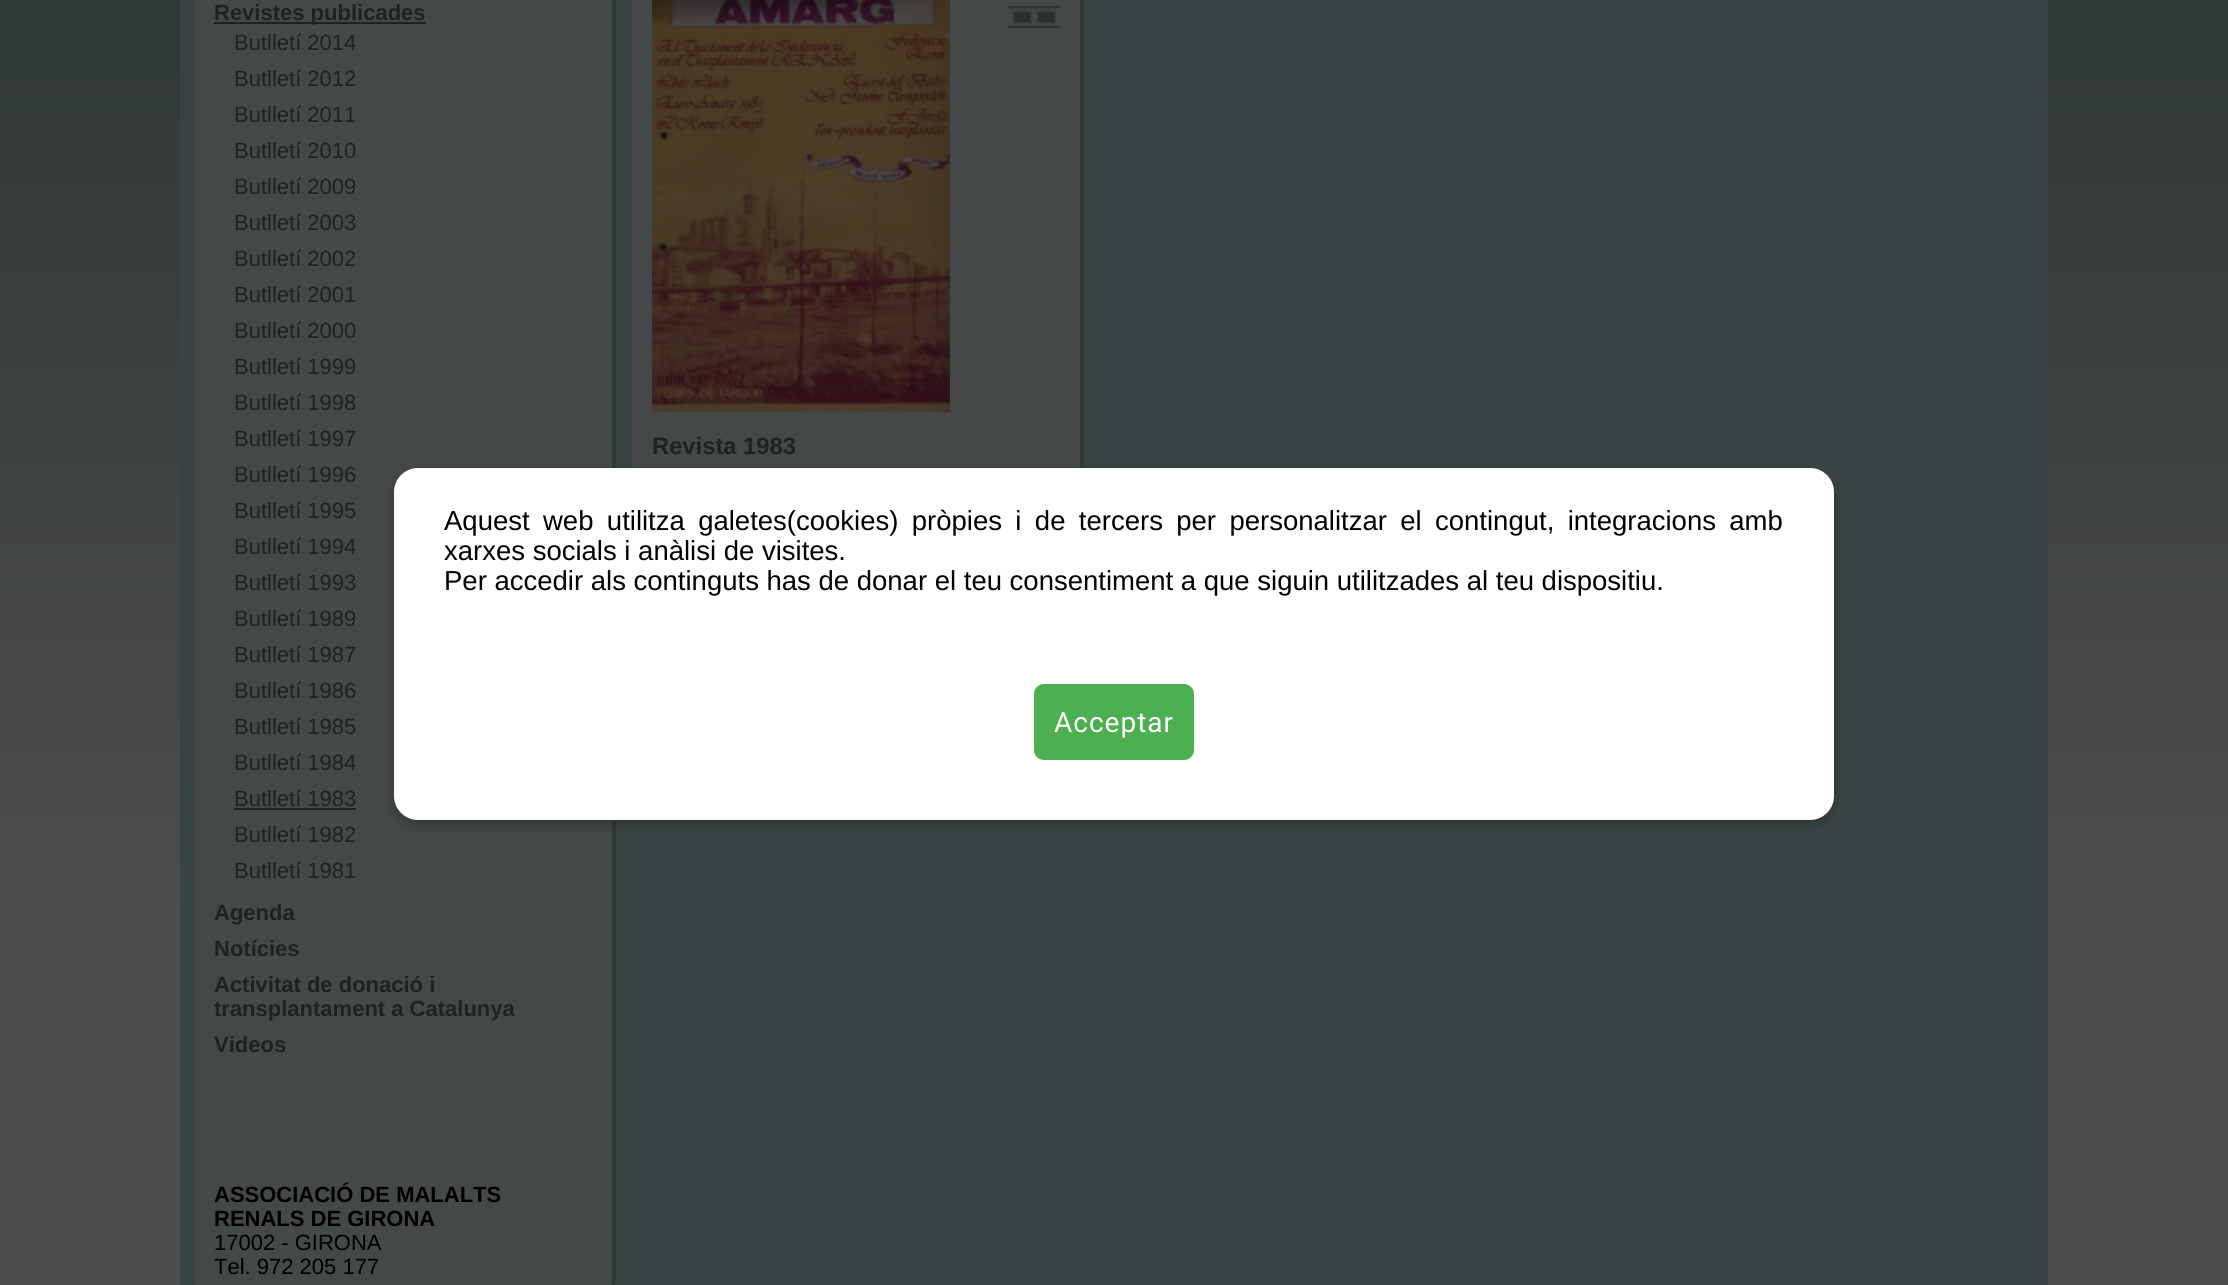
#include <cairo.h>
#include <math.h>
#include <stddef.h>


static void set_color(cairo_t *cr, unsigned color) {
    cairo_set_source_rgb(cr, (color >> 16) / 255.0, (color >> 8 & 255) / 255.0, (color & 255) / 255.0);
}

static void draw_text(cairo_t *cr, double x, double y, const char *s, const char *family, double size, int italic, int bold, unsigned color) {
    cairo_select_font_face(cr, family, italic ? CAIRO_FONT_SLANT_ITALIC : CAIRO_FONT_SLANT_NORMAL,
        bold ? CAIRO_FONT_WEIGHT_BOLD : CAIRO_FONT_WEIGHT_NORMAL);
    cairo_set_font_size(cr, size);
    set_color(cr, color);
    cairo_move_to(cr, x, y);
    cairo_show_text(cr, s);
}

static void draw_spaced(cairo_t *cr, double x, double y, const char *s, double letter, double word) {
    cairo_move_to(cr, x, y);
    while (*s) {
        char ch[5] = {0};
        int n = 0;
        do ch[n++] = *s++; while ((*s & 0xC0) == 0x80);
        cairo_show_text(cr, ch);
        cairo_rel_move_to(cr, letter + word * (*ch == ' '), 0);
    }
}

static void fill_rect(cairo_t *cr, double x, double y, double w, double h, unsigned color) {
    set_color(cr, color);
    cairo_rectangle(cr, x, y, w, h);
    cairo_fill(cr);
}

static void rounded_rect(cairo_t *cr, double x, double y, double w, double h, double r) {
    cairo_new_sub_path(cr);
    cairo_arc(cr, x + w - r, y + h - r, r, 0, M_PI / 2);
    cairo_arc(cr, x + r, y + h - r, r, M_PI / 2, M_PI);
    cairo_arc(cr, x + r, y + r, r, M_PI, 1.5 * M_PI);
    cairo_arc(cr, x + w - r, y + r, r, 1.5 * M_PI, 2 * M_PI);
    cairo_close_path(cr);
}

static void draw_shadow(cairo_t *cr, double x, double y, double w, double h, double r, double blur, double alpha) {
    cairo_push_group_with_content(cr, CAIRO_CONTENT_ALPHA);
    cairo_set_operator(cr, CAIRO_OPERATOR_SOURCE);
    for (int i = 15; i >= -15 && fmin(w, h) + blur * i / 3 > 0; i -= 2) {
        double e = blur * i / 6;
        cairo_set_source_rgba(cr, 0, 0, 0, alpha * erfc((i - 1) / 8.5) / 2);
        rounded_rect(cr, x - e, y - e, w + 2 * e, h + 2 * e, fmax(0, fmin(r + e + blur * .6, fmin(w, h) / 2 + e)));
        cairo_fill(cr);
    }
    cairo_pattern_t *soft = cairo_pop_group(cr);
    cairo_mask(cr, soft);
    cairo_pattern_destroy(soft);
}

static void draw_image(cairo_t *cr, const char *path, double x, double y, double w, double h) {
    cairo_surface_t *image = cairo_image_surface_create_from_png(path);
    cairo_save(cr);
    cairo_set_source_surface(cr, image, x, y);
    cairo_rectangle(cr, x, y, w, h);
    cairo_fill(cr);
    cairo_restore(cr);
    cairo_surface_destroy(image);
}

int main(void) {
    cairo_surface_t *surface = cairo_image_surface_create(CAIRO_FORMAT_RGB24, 2228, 1285);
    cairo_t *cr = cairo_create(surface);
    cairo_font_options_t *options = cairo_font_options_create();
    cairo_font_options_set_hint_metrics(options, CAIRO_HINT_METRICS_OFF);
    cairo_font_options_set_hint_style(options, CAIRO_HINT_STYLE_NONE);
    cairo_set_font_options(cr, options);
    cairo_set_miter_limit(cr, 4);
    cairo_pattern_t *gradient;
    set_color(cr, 0xFFFFFF);
    cairo_paint(cr);
    gradient = cairo_pattern_create_linear(1114, -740, 1114, 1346);
    cairo_pattern_add_color_stop_rgba(gradient, 0, 0.098, 0.157, 0.129, 1);
    cairo_pattern_add_color_stop_rgba(gradient, 0.8, 0.302, 0.302, 0.302, 1);
    cairo_set_source(cr, gradient);
    cairo_pattern_destroy(gradient);
    cairo_rectangle(cr, 0, 0, 2228, 1285);
    cairo_fill(cr);
    fill_rect(cr, 180, 0, 1868, 1285, 0x3A4343);
    set_color(cr, 0x2F3A35);
    cairo_new_path(cr);
    cairo_move_to(cr, 202, 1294);
    cairo_curve_to(cr, 206, 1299, 211, 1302, 218, 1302);
    cairo_line_to(cr, 596, 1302);
    cairo_curve_to(cr, 607, 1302, 616, 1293, 616, 1282);
    cairo_line_to(cr, 616, -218);
    cairo_curve_to(cr, 616, -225, 613, -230, 608, -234);
    cairo_curve_to(cr, 611, -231, 612, -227, 612, -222);
    cairo_line_to(cr, 612, 1278);
    cairo_curve_to(cr, 612, 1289, 603, 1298, 592, 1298);
    cairo_line_to(cr, 214, 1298);
    cairo_curve_to(cr, 209, 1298, 205, 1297, 202, 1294);
    cairo_close_path(cr);
    cairo_fill(cr);
    set_color(cr, 0x454848);
    rounded_rect(cr, 194, -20, 418, 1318, 20);
    cairo_fill(cr);
    fill_rect(cr, 214, 22, 212, 2, 0x1C2320);
    draw_text(cr, 214, 20, "Revistes publicades", "Liberation Sans", 22, 0, 1, 0x1C2320);
    draw_text(cr, 234, 50, "Butlletí 2014", "Liberation Sans", 22, 0, 0, 0x1C2320);
    draw_text(cr, 234, 86, "Butlletí 2012", "Liberation Sans", 22, 0, 0, 0x1C2320);
    draw_text(cr, 234, 122, "Butlletí 2011", "Liberation Sans", 22, 0, 0, 0x1C2320);
    draw_text(cr, 234, 158, "Butlletí 2010", "Liberation Sans", 22, 0, 0, 0x1C2320);
    draw_text(cr, 234, 194, "Butlletí 2009", "Liberation Sans", 22, 0, 0, 0x1C2320);
    draw_text(cr, 234, 230, "Butlletí 2003", "Liberation Sans", 22, 0, 0, 0x1C2320);
    draw_text(cr, 234, 266, "Butlletí 2002", "Liberation Sans", 22, 0, 0, 0x1C2320);
    draw_text(cr, 234, 302, "Butlletí 2001", "Liberation Sans", 22, 0, 0, 0x1C2320);
    draw_text(cr, 234, 338, "Butlletí 2000", "Liberation Sans", 22, 0, 0, 0x1C2320);
    draw_text(cr, 234, 374, "Butlletí 1999", "Liberation Sans", 22, 0, 0, 0x1C2320);
    draw_text(cr, 234, 410, "Butlletí 1998", "Liberation Sans", 22, 0, 0, 0x1C2320);
    draw_text(cr, 234, 446, "Butlletí 1997", "Liberation Sans", 22, 0, 0, 0x1C2320);
    draw_text(cr, 234, 482, "Butlletí 1996", "Liberation Sans", 22, 0, 0, 0x1C2320);
    draw_text(cr, 234, 518, "Butlletí 1995", "Liberation Sans", 22, 0, 0, 0x1C2320);
    draw_text(cr, 234, 554, "Butlletí 1994", "Liberation Sans", 22, 0, 0, 0x1C2320);
    draw_text(cr, 234, 590, "Butlletí 1993", "Liberation Sans", 22, 0, 0, 0x1C2320);
    draw_text(cr, 234, 626, "Butlletí 1989", "Liberation Sans", 22, 0, 0, 0x1C2320);
    draw_text(cr, 234, 662, "Butlletí 1987", "Liberation Sans", 22, 0, 0, 0x1C2320);
    draw_text(cr, 234, 698, "Butlletí 1986", "Liberation Sans", 22, 0, 0, 0x1C2320);
    draw_text(cr, 234, 734, "Butlletí 1985", "Liberation Sans", 22, 0, 0, 0x1C2320);
    draw_text(cr, 234, 770, "Butlletí 1984", "Liberation Sans", 22, 0, 0, 0x1C2320);
    draw_text(cr, 234, 806, "Butlletí 1983", "Liberation Sans", 22, 0, 0, 0x1C2320);
    fill_rect(cr, 234, 808, 122, 2, 0x1C2320);
    draw_text(cr, 234, 842, "Butlletí 1982", "Liberation Sans", 22, 0, 0, 0x1C2320);
    draw_text(cr, 234, 878, "Butlletí 1981", "Liberation Sans", 22, 0, 0, 0x1C2320);
    draw_text(cr, 214, 920, "Agenda", "Liberation Sans", 22, 0, 1, 0x1C2320);
    draw_text(cr, 214, 956, "Notícies", "Liberation Sans", 22, 0, 1, 0x1C2320);
    draw_text(cr, 214, 992, "Activitat de donació i", "Liberation Sans", 22, 0, 1, 0x1C2320);
    draw_text(cr, 214, 1016, "transplantament a Catalunya", "Liberation Sans", 22, 0, 1, 0x1C2320);
    draw_text(cr, 214, 1052, "Videos", "Liberation Sans", 22, 0, 1, 0x1C2320);
    draw_text(cr, 214, 1202, "ASSOCIACIÓ DE MALALTS", "Liberation Sans", 22, 0, 1, 0x000000);
    draw_text(cr, 214, 1226, "RENALS DE GIRONA", "Liberation Sans", 22, 0, 1, 0x000000);
    draw_text(cr, 214, 1250, "17002 - GIRONA", "Liberation Sans", 22, 0, 0, 0x000000);
    draw_text(cr, 214, 1274, "Tel. 972 205 177", "Liberation Sans", 22, 0, 0, 0x000000);
    set_color(cr, 0x2F3A35);
    cairo_new_path(cr);
    cairo_move_to(cr, 640, 496);
    cairo_curve_to(cr, 644, 501, 649, 504, 656, 504);
    cairo_line_to(cr, 1064, 504);
    cairo_curve_to(cr, 1075, 504, 1084, 495, 1084, 484);
    cairo_line_to(cr, 1084, 4);
    cairo_curve_to(cr, 1084, -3, 1081, -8, 1076, -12);
    cairo_curve_to(cr, 1079, -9, 1080, -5, 1080, 0);
    cairo_line_to(cr, 1080, 480);
    cairo_curve_to(cr, 1080, 491, 1071, 500, 1060, 500);
    cairo_line_to(cr, 652, 500);
    cairo_curve_to(cr, 647, 500, 643, 499, 640, 496);
    cairo_close_path(cr);
    cairo_fill(cr);
    fill_rect(cr, 632, 0, 448, 468, 0x454848);
    draw_image(cr, "assets/img1.png", 652, 0, 298, 412);
    draw_image(cr, "assets/img2.png", 1008, 6, 52, 22);
    draw_text(cr, 652, 454, "Revista 1983", "Liberation Sans", 23.75, 0, 1, 0x1C2320);
    set_color(cr, 0x000000);
    draw_shadow(cr, 394, 474, 1440, 352, 24, 6, 0.23);
    set_color(cr, 0xFFFFFF);
    rounded_rect(cr, 394, 468, 1440, 352, 24);
    cairo_fill(cr);
    cairo_select_font_face(cr, "Liberation Sans", CAIRO_FONT_SLANT_NORMAL, CAIRO_FONT_WEIGHT_NORMAL);
    cairo_set_font_size(cr, 27.5);
    set_color(cr, 0x000000);
    draw_spaced(cr, 444, 530, "Aquest web utilitza galetes(cookies) pròpies i de tercers per personalitzar el contingut, integracions amb", 0, 5.75);
    draw_text(cr, 444, 560, "xarxes socials i anàlisi de visites.", "Liberation Sans", 27.5, 0, 0, 0x000000);
    draw_text(cr, 444, 590, "Per accedir als continguts has de donar el teu consentiment a que siguin utilitzades al teu dispositiu.", "Liberation Sans", 27.5, 0, 0, 0x000000);
    set_color(cr, 0x4CAF50);
    rounded_rect(cr, 1036, 686, 156, 72, 8);
    cairo_fill_preserve(cr);
    cairo_set_line_width(cr, 4);
    cairo_stroke(cr);
    cairo_select_font_face(cr, "Roboto", CAIRO_FONT_SLANT_NORMAL, CAIRO_FONT_WEIGHT_NORMAL);
    cairo_set_font_size(cr, 28);
    set_color(cr, 0xFFFFFF);
    draw_spaced(cr, 1054, 732, "Acceptar", 1, 0);
    cairo_surface_write_to_png(surface, "output.png");
    cairo_font_options_destroy(options);
    cairo_destroy(cr);
    cairo_surface_destroy(surface);
    return 0;
}
